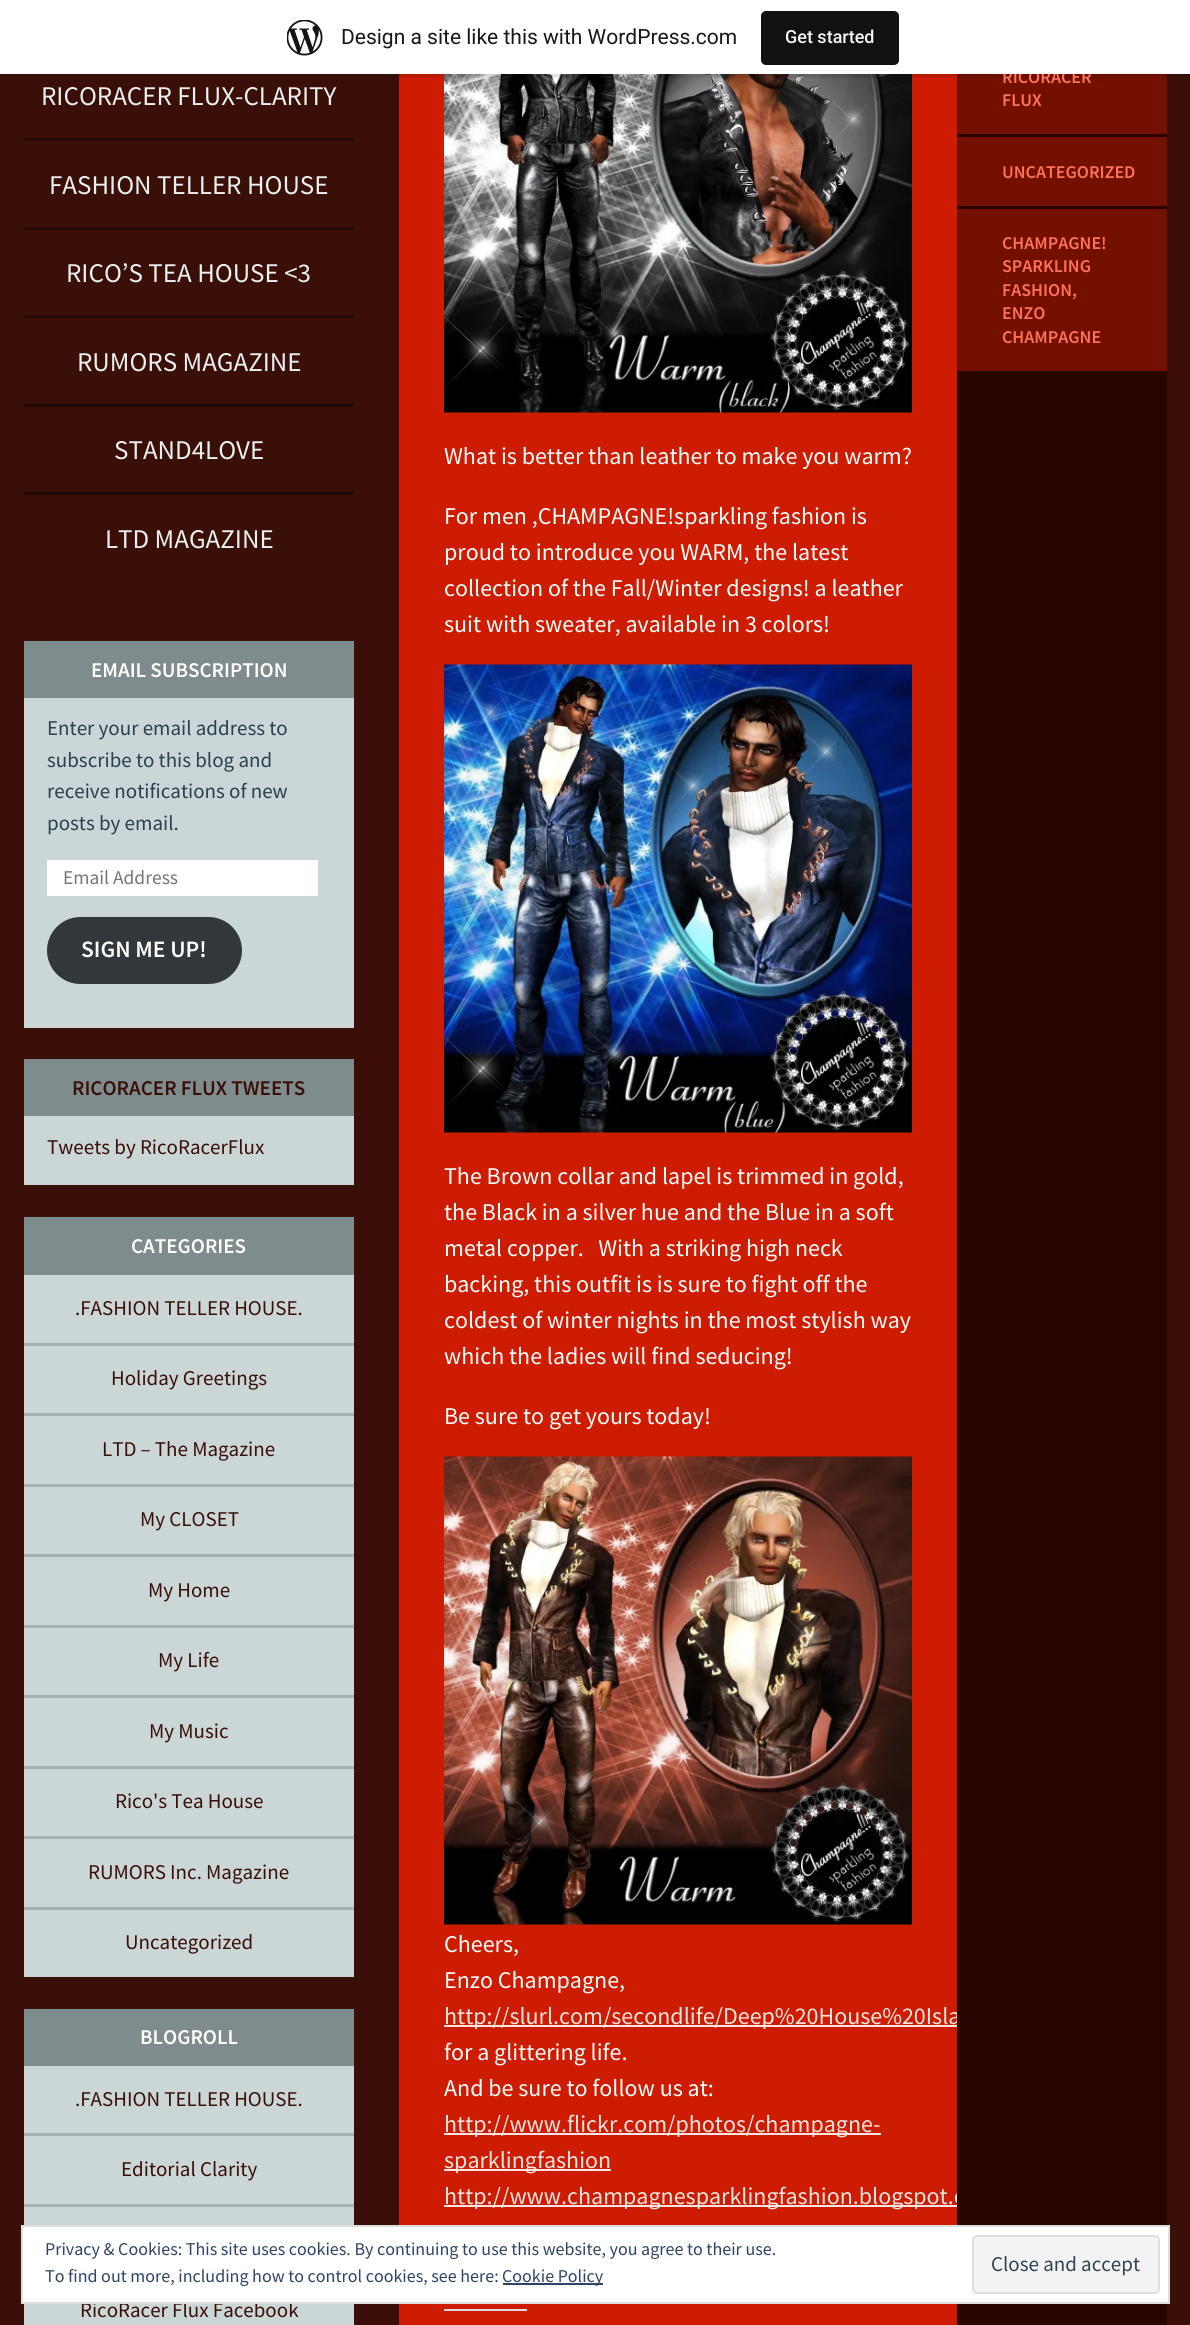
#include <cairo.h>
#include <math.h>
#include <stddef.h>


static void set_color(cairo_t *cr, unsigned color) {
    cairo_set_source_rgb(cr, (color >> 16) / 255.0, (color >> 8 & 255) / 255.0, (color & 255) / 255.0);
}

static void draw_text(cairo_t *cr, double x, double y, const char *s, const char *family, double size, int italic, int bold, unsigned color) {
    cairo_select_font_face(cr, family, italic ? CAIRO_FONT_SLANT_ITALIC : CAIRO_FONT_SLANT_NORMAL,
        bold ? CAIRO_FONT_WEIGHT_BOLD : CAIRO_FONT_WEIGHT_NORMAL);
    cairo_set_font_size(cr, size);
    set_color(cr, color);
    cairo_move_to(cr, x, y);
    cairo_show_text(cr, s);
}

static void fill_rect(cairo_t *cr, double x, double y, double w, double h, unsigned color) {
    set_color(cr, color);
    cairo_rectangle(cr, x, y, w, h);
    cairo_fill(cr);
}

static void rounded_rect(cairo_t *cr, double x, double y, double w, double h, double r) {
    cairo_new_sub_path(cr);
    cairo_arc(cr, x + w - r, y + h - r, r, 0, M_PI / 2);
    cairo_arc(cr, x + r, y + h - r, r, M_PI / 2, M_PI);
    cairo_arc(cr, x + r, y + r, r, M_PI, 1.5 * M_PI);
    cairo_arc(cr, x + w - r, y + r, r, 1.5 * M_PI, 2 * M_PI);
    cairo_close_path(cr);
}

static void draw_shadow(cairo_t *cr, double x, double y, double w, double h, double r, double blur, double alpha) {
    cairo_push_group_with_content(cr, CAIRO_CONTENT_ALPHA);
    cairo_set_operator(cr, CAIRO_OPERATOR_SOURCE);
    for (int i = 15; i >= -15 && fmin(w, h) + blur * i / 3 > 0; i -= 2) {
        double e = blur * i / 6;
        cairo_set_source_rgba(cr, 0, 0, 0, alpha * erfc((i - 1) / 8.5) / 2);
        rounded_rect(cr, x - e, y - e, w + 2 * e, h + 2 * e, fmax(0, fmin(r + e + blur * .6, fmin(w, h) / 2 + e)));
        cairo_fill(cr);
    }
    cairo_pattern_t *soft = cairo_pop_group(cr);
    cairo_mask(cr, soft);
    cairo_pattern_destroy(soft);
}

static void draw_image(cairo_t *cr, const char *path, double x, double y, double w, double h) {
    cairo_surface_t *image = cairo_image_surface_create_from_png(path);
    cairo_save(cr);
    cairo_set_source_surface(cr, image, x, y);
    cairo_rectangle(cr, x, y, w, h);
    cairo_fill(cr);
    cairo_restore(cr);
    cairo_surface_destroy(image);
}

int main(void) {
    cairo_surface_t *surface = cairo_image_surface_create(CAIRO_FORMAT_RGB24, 1190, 2325);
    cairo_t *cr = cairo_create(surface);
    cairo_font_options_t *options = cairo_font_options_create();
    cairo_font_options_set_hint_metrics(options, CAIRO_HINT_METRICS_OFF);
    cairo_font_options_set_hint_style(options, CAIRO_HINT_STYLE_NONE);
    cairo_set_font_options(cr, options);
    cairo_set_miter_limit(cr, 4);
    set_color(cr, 0x390F08);
    cairo_paint(cr);
    fill_rect(cr, 399, 74, 558, 2251, 0xCD1C01);
    fill_rect(cr, 957, 74, 210, 60, 0x741000);
    draw_image(cr, "assets/img2.png", 444, 74, 468, 339);
    set_color(cr, 0x000000);
    draw_shadow(cr, 0, 2, 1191, 73, 0, 1.5, 0.05);
    cairo_set_source_rgba(cr, 0, 0, 0, 0.08);
    cairo_new_path(cr);
    cairo_move_to(cr, 2, 74);
    cairo_line_to(cr, 2, 78);
    cairo_line_to(cr, 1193, 78);
    cairo_line_to(cr, 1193, 5);
    cairo_line_to(cr, 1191, 5);
    cairo_line_to(cr, 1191, 74);
    cairo_close_path(cr);
    cairo_fill(cr);
    draw_text(cr, 1002, 83, "RICORACER", "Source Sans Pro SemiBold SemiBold", 18, 0, 0, 0xFE725C);
    fill_rect(cr, 0, 0, 1190, 74, 0xFFFFFF);
    draw_image(cr, "assets/img1.png", 287, 20, 36, 36);
    draw_text(cr, 341, 44, "Design a site like this with WordPress.com", "Roboto", 21, 0, 0, 0x171717);
    set_color(cr, 0x111111);
    rounded_rect(cr, 761, 11, 138, 54, 5);
    cairo_fill(cr);
    draw_text(cr, 785, 43, "Get started", "Roboto Medium", 18, 0, 0, 0xF6F7F7);
    fill_rect(cr, 24, 138, 330, 3, 0x230905);
    draw_text(cr, 41, 105, "RICORACER FLUX-CLARITY", "Source Sans Pro", 27, 0, 0, 0xECF0F1);
    fill_rect(cr, 24, 227, 330, 3, 0x230905);
    draw_text(cr, 49, 194, "FASHION TELLER HOUSE", "Source Sans Pro", 27, 0, 0, 0xECF0F1);
    fill_rect(cr, 24, 315, 330, 3, 0x230905);
    draw_text(cr, 66, 282, "RICO’S TEA HOUSE <3", "Source Sans Pro", 27, 0, 0, 0xECF0F1);
    fill_rect(cr, 24, 404, 330, 3, 0x230905);
    draw_text(cr, 77, 371, "RUMORS MAGAZINE", "Source Sans Pro", 27, 0, 0, 0xECF0F1);
    fill_rect(cr, 24, 492, 330, 3, 0x230905);
    draw_text(cr, 114, 459, "STAND4LOVE", "Source Sans Pro", 27, 0, 0, 0xECF0F1);
    draw_text(cr, 105, 548, "LTD MAGAZINE", "Source Sans Pro", 27, 0, 0, 0xECF0F1);
    draw_text(cr, 1002, 106, "FLUX", "Source Sans Pro SemiBold SemiBold", 18, 0, 0, 0xFE725C);
    fill_rect(cr, 444, 2025, 513, 2, 0xF8E5E1);
    draw_text(cr, 444, 2024, "http://slurl.com/secondlife/Deep%20House%20Isla", "Source Sans Pro", 24, 0, 0, 0xF8E5E1);
    fill_rect(cr, 444, 2205, 513, 2, 0xF8E5E1);
    draw_text(cr, 444, 2204, "http://www.champagnesparklingfashion.blogspot.c", "Source Sans Pro", 24, 0, 0, 0xF8E5E1);
    fill_rect(cr, 957, 134, 210, 2191, 0x280500);
    fill_rect(cr, 957, 137, 210, 69, 0x741000);
    draw_text(cr, 1002, 178, "UNCATEGORIZED", "Source Sans Pro SemiBold SemiBold", 18, 0, 0, 0xFE725C);
    fill_rect(cr, 957, 209, 210, 162, 0x741000);
    draw_text(cr, 1002, 249, "CHAMPAGNE!", "Source Sans Pro SemiBold SemiBold", 18, 0, 0, 0xFE725C);
    draw_text(cr, 1002, 272, "SPARKLING", "Source Sans Pro SemiBold SemiBold", 18, 0, 0, 0xFE725C);
    draw_text(cr, 1002, 296, "FASHION,", "Source Sans Pro SemiBold SemiBold", 18, 0, 0, 0xFE725C);
    draw_text(cr, 1002, 319, "ENZO", "Source Sans Pro SemiBold SemiBold", 18, 0, 0, 0xFE725C);
    draw_text(cr, 1002, 343, "CHAMPAGNE", "Source Sans Pro SemiBold SemiBold", 18, 0, 0, 0xFE725C);
    draw_text(cr, 444, 464, "What is better than leather to make you warm?", "Source Sans Pro", 24, 0, 0, 0xFFFFFF);
    draw_text(cr, 444, 524, "For men ,CHAMPAGNE!sparkling fashion is", "Source Sans Pro", 24, 0, 0, 0xFFFFFF);
    draw_text(cr, 444, 560, "proud to introduce you WARM, the latest", "Source Sans Pro", 24, 0, 0, 0xFFFFFF);
    draw_text(cr, 444, 596, "collection of the Fall/Winter designs! a leather", "Source Sans Pro", 24, 0, 0, 0xFFFFFF);
    draw_text(cr, 444, 632, "suit with sweater, available in 3 colors!", "Source Sans Pro", 24, 0, 0, 0xFFFFFF);
    draw_image(cr, "assets/img3.png", 444, 664, 468, 469);
    draw_text(cr, 444, 1184, "The Brown collar and lapel is trimmed in gold,", "Source Sans Pro", 24, 0, 0, 0xFFFFFF);
    draw_text(cr, 444, 1220, "the Black in a silver hue and the Blue in a soft", "Source Sans Pro", 24, 0, 0, 0xFFFFFF);
    draw_text(cr, 444, 1256, "metal copper.   With a striking high neck", "Source Sans Pro", 24, 0, 0, 0xFFFFFF);
    draw_text(cr, 444, 1292, "backing, this outfit is is sure to fight off the", "Source Sans Pro", 24, 0, 0, 0xFFFFFF);
    draw_text(cr, 444, 1328, "coldest of winter nights in the most stylish way", "Source Sans Pro", 24, 0, 0, 0xFFFFFF);
    draw_text(cr, 444, 1364, "which the ladies will find seducing!", "Source Sans Pro", 24, 0, 0, 0xFFFFFF);
    draw_text(cr, 444, 1424, "Be sure to get yours today!", "Source Sans Pro", 24, 0, 0, 0xFFFFFF);
    draw_image(cr, "assets/img4.png", 444, 1456, 468, 469);
    draw_text(cr, 444, 1952, "Cheers,", "Source Sans Pro", 24, 0, 0, 0xFFFFFF);
    draw_text(cr, 444, 1988, "Enzo Champagne,", "Source Sans Pro", 24, 0, 0, 0xFFFFFF);
    draw_text(cr, 444, 2060, "for a glittering life.", "Source Sans Pro", 24, 0, 0, 0xFFFFFF);
    draw_text(cr, 444, 2096, "And be sure to follow us at:", "Source Sans Pro", 24, 0, 0, 0xFFFFFF);
    fill_rect(cr, 444, 2133, 437, 2, 0xF8E5E1);
    draw_text(cr, 444, 2132, "http://www.flickr.com/photos/champagne-", "Source Sans Pro", 24, 0, 0, 0xF8E5E1);
    fill_rect(cr, 444, 2169, 167, 2, 0xF8E5E1);
    draw_text(cr, 444, 2168, "sparklingfashion", "Source Sans Pro", 24, 0, 0, 0xF8E5E1);
    fill_rect(cr, 444, 2309, 83, 2, 0xDCDCDE);
    fill_rect(cr, 24, 698, 330, 330, 0xCBD6D6);
    fill_rect(cr, 24, 641, 330, 57, 0x7F8C8D);
    draw_text(cr, 91, 677, "EMAIL SUBSCRIPTION", "Source Sans Pro SemiBold SemiBold", 21, 0, 0, 0xFFFFFF);
    draw_text(cr, 47, 735, "Enter your email address to", "Source Sans Pro", 21, 0, 0, 0x2C3E50);
    draw_text(cr, 47, 767, "subscribe to this blog and", "Source Sans Pro", 21, 0, 0, 0x2C3E50);
    draw_text(cr, 47, 798, "receive notifications of new", "Source Sans Pro", 21, 0, 0, 0x2C3E50);
    draw_text(cr, 47, 830, "posts by email.", "Source Sans Pro", 21, 0, 0, 0x2C3E50);
    fill_rect(cr, 47, 860, 271, 36, 0xFFFFFF);
    draw_text(cr, 63, 884, "Email Address", "Source Sans Pro", 19.5, 0, 0, 0x757575);
    set_color(cr, 0x32373C);
    rounded_rect(cr, 47, 917, 195, 67, 33.5);
    cairo_fill(cr);
    draw_text(cr, 81, 957, "SIGN ME UP!", "Source Sans Pro SemiBold SemiBold", 23.5, 0, 0, 0xFFFFFF);
    fill_rect(cr, 24, 1116, 330, 69, 0xCBD6D6);
    fill_rect(cr, 24, 1059, 330, 57, 0x7F8C8D);
    draw_text(cr, 72, 1095, "RICORACER FLUX TWEETS", "Source Sans Pro SemiBold SemiBold", 21, 0, 0, 0x390F08);
    draw_text(cr, 47, 1154, "Tweets by RicoRacerFlux", "Source Sans Pro", 21, 0, 0, 0x390F08);
    fill_rect(cr, 24, 1275, 330, 702, 0xCBD6D6);
    fill_rect(cr, 24, 1217, 330, 58, 0x7F8C8D);
    draw_text(cr, 131, 1253, "CATEGORIES", "Source Sans Pro SemiBold SemiBold", 21, 0, 0, 0xFFFFFF);
    fill_rect(cr, 24, 1343, 330, 3, 0xA7B0B1);
    draw_text(cr, 75, 1315, ".FASHION TELLER HOUSE.", "Source Sans Pro", 21, 0, 0, 0x390F08);
    fill_rect(cr, 24, 1413, 330, 3, 0xA7B0B1);
    draw_text(cr, 111, 1385, "Holiday Greetings", "Source Sans Pro", 21, 0, 0, 0x390F08);
    fill_rect(cr, 24, 1484, 330, 3, 0xA7B0B1);
    draw_text(cr, 102, 1456, "LTD – The Magazine", "Source Sans Pro", 21, 0, 0, 0x390F08);
    fill_rect(cr, 24, 1554, 330, 3, 0xA7B0B1);
    draw_text(cr, 140, 1526, "My CLOSET", "Source Sans Pro", 21, 0, 0, 0x390F08);
    fill_rect(cr, 24, 1625, 330, 3, 0xA7B0B1);
    draw_text(cr, 148, 1597, "My Home", "Source Sans Pro", 21, 0, 0, 0x390F08);
    fill_rect(cr, 24, 1695, 330, 3, 0xA7B0B1);
    draw_text(cr, 158, 1667, "My Life", "Source Sans Pro", 21, 0, 0, 0x390F08);
    fill_rect(cr, 24, 1766, 330, 3, 0xA7B0B1);
    draw_text(cr, 149, 1738, "My Music", "Source Sans Pro", 21, 0, 0, 0x390F08);
    fill_rect(cr, 24, 1836, 330, 3, 0xA7B0B1);
    draw_text(cr, 115, 1808, "Rico's Tea House", "Source Sans Pro", 21, 0, 0, 0x390F08);
    fill_rect(cr, 24, 1907, 330, 3, 0xA7B0B1);
    draw_text(cr, 88, 1879, "RUMORS Inc. Magazine", "Source Sans Pro", 21, 0, 0, 0x390F08);
    draw_text(cr, 125, 1949, "Uncategorized", "Source Sans Pro", 21, 0, 0, 0x390F08);
    fill_rect(cr, 24, 2066, 330, 259, 0xCBD6D6);
    fill_rect(cr, 24, 2009, 330, 57, 0x7F8C8D);
    draw_text(cr, 140, 2044, "BLOGROLL", "Source Sans Pro SemiBold SemiBold", 21, 0, 0, 0xFFFFFF);
    fill_rect(cr, 24, 2133, 330, 3, 0xA7B0B1);
    draw_text(cr, 75, 2106, ".FASHION TELLER HOUSE.", "Source Sans Pro", 21, 0, 0, 0x390F08);
    fill_rect(cr, 24, 2204, 330, 3, 0xA7B0B1);
    draw_text(cr, 121, 2176, "Editorial Clarity", "Source Sans Pro", 21, 0, 0, 0x390F08);
    draw_text(cr, 80, 2317, "RicoRacer Flux Facebook", "Source Sans Pro", 21, 0, 0, 0x390F08);
    set_color(cr, 0xFFFFFF);
    cairo_rectangle(cr, 22, 2226, 1147, 77);
    cairo_fill_preserve(cr);
    set_color(cr, 0xDEDEDE);
    cairo_stroke(cr);
    draw_text(cr, 45, 2255, "Privacy & Cookies: This site uses cookies. By continuing to use this website, you agree to their use.", "Source Sans Pro", 18, 0, 0, 0x2E4467);
    draw_text(cr, 45, 2282, "To find out more, including how to control cookies, see here:", "Source Sans Pro", 18, 0, 0, 0x2E4467);
    fill_rect(cr, 503, 2283, 100, 2, 0x2E4467);
    draw_text(cr, 502, 2282, "Cookie Policy", "Source Sans Pro", 18, 0, 0, 0x2E4467);
    set_color(cr, 0xF3F3F3);
    rounded_rect(cr, 973, 2236, 186, 57, 4);
    cairo_fill_preserve(cr);
    set_color(cr, 0xDEDEDE);
    cairo_stroke(cr);
    draw_text(cr, 991, 2271, "Close and accept", "Source Sans Pro", 21, 0, 0, 0x2E4453);
    cairo_surface_write_to_png(surface, "output.png");
    cairo_font_options_destroy(options);
    cairo_destroy(cr);
    cairo_surface_destroy(surface);
    return 0;
}
